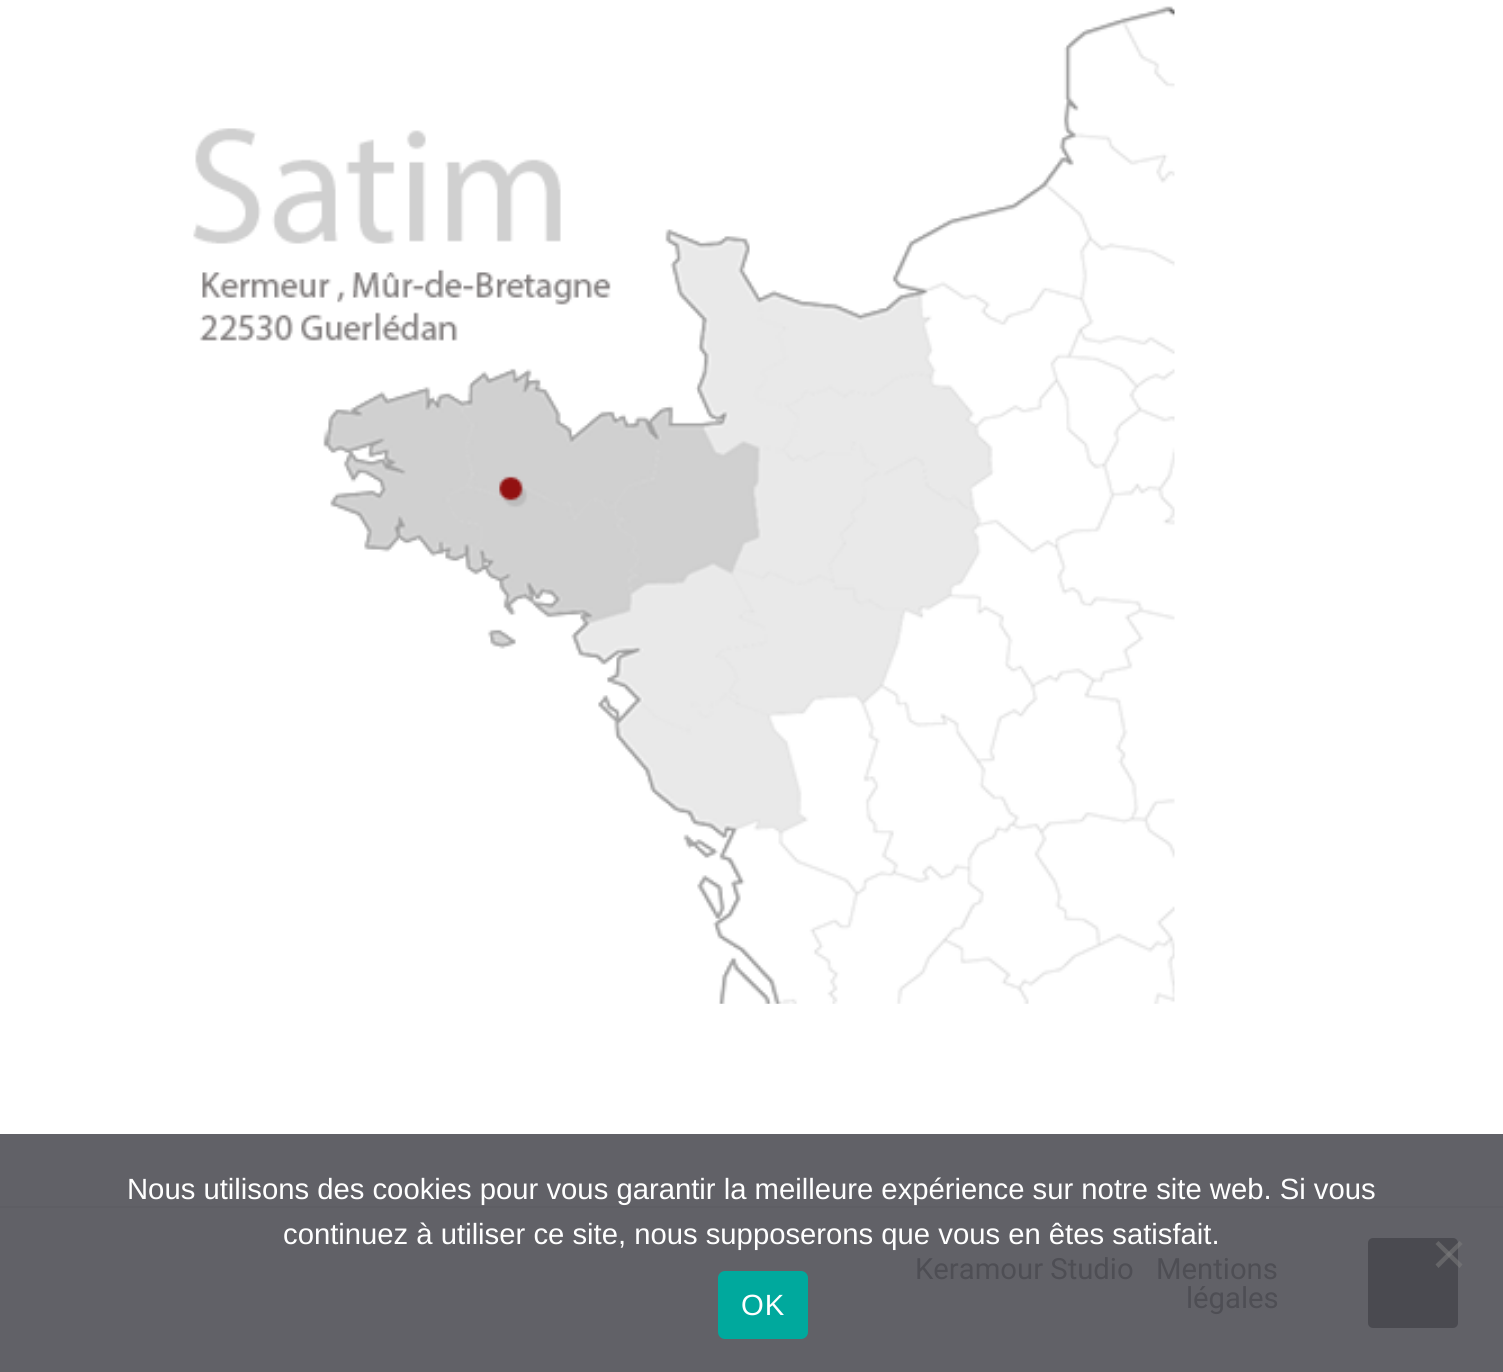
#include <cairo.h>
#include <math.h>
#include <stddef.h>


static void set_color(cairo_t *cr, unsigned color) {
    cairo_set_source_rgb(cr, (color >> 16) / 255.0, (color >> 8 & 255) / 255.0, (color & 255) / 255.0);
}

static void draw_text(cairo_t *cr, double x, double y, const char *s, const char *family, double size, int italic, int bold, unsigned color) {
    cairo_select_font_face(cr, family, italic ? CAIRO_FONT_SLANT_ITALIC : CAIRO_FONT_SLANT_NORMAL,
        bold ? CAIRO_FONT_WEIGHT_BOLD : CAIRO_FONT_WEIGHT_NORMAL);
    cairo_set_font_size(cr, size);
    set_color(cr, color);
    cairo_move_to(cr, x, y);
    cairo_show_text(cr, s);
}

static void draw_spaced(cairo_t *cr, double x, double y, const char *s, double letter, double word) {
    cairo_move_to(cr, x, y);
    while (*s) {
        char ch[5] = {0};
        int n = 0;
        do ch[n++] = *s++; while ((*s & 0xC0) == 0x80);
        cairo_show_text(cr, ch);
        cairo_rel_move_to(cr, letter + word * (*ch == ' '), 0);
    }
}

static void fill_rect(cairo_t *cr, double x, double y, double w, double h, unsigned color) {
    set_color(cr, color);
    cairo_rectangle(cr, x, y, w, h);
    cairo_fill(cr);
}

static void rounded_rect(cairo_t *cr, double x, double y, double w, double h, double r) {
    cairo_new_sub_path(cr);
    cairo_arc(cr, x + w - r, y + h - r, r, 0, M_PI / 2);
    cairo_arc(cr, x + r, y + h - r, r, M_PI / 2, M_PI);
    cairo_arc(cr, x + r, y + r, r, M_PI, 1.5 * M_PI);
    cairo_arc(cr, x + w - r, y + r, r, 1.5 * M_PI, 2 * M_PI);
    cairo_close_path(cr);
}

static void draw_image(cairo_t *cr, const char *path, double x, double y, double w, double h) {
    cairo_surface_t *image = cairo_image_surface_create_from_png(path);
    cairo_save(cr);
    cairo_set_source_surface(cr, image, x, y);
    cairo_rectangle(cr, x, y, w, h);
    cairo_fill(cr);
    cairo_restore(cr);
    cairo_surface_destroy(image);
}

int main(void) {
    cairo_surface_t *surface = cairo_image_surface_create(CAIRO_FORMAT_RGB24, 1503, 1372);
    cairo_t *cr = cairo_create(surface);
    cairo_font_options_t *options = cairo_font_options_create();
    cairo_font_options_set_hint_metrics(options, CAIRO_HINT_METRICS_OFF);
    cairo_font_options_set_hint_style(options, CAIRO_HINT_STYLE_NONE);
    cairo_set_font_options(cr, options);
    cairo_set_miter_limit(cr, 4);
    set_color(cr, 0xFFFFFF);
    cairo_paint(cr);
    fill_rect(cr, 0, 1134, 1503, 238, 0x616167);
    draw_text(cr, 127, 1199, "Nous utilisons des cookies pour vous garantir la meilleure expérience sur notre site web. Si vous", "Liberation Sans", 29.25, 0, 0, 0xFFFFFF);
    draw_text(cr, 283, 1244, "continuez à utiliser ce site, nous supposerons que vous en êtes satisfait.", "Liberation Sans", 29.25, 0, 0, 0xFFFFFF);
    set_color(cr, 0x4A4A50);
    rounded_rect(cr, 1368, 1238, 90, 90, 5);
    cairo_fill(cr);
    cairo_set_source_rgba(cr, 0.502, 0.502, 0.502, 0.5);
    cairo_new_path(cr);
    cairo_move_to(cr, 1459.5, 1241);
    cairo_line_to(cr, 1462.5, 1244);
    cairo_line_to(cr, 1438.5, 1268);
    cairo_line_to(cr, 1435.5, 1264.5);
    cairo_close_path(cr);
    cairo_fill(cr);
    cairo_new_path(cr);
    cairo_move_to(cr, 1435.5, 1244);
    cairo_line_to(cr, 1438.5, 1241);
    cairo_line_to(cr, 1462.5, 1264.5);
    cairo_line_to(cr, 1459.5, 1268);
    cairo_close_path(cr);
    cairo_fill(cr);
    set_color(cr, 0x00A99D);
    rounded_rect(cr, 718, 1271, 90, 68, 7);
    cairo_fill(cr);
    set_color(cr, 0xFFFFFF);
    draw_spaced(cr, 741, 1315, "OK", 1, 0);
    draw_image(cr, "assets/img1.png", 193, 6, 982, 998);
    fill_rect(cr, 0, 1206, 1503, 2, 0x5E5E64);
    draw_text(cr, 915, 1279, "Keramour Studio", "Roboto", 29.25, 0, 0, 0x4E4E54);
    draw_text(cr, 1156, 1279, "Mentions", "Roboto", 29.25, 0, 0, 0x4E4E54);
    draw_text(cr, 1186, 1308, "légales", "Roboto", 29.25, 0, 0, 0x4E4E54);
    cairo_surface_write_to_png(surface, "output.png");
    cairo_font_options_destroy(options);
    cairo_destroy(cr);
    cairo_surface_destroy(surface);
    return 0;
}
